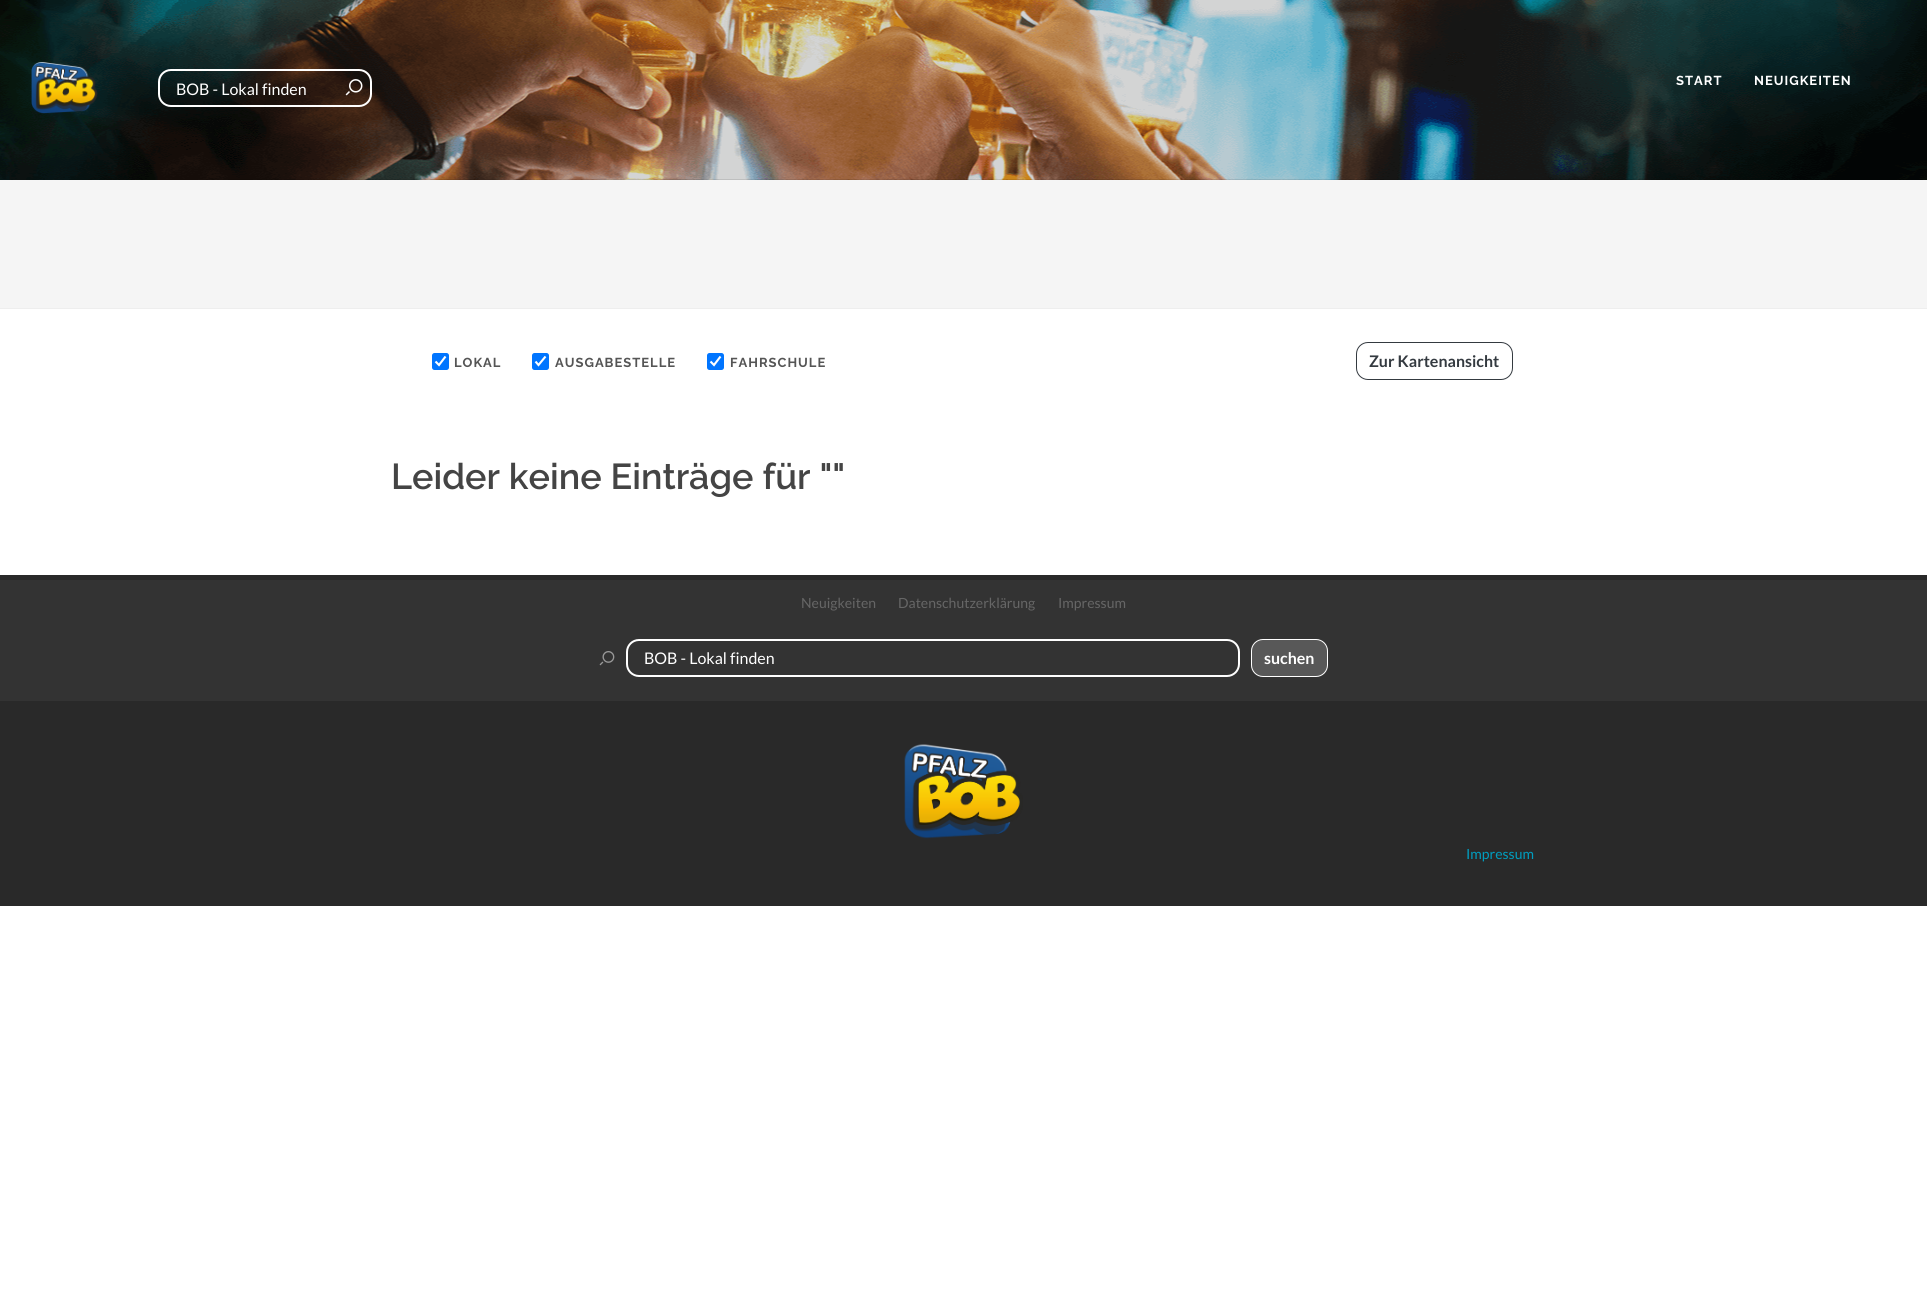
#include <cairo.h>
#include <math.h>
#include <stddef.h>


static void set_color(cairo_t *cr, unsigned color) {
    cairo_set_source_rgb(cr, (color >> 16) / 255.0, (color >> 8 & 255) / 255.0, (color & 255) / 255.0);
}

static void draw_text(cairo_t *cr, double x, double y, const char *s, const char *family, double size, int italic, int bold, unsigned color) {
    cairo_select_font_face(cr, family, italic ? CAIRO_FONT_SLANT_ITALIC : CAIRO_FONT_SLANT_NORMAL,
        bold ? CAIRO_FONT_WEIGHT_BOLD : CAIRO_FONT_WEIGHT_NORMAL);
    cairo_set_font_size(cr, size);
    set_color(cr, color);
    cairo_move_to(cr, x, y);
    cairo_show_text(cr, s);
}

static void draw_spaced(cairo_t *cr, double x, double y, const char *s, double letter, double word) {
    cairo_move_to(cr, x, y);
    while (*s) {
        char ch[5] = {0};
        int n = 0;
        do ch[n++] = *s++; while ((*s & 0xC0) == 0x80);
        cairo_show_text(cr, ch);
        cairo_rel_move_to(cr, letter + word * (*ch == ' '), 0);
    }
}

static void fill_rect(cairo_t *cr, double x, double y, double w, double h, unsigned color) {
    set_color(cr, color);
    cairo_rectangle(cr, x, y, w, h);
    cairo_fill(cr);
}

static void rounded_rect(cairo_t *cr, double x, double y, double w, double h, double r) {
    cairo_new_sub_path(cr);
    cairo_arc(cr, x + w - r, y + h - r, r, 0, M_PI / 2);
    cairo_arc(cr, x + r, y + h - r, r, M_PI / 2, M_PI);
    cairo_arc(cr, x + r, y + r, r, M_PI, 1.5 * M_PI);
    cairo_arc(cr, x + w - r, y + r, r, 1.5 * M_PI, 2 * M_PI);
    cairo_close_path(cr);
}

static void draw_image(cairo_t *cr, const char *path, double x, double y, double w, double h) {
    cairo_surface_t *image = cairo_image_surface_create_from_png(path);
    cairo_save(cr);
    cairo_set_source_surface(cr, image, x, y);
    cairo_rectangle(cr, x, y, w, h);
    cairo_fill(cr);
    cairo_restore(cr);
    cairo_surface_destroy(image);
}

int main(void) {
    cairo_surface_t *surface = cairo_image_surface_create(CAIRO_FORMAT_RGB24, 1927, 1302);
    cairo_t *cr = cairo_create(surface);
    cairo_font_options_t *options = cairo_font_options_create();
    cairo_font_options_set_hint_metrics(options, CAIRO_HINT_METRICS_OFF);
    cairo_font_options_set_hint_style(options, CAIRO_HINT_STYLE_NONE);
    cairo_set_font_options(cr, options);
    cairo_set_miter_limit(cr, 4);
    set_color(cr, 0xFFFFFF);
    cairo_paint(cr);
    fill_rect(cr, 0, 180, 1927, 128, 0xF5F5F5);
    fill_rect(cr, 0, 308, 1927, 1, 0xEEEEEE);
    draw_image(cr, "assets/img1.png", 0, 0, 1927, 180);
    cairo_set_source_rgba(cr, 0, 0, 0, 0.1);
    cairo_rectangle(cr, 209, 179, 1436, 1);
    cairo_fill(cr);
    draw_image(cr, "assets/img2.png", 31, 62, 67, 52);
    cairo_select_font_face(cr, "Raleway Thin", CAIRO_FONT_SLANT_NORMAL, CAIRO_FONT_WEIGHT_NORMAL);
    cairo_set_font_size(cr, 13);
    set_color(cr, 0xFFFFFF);
    draw_spaced(cr, 1676, 85, "START", 1, 0);
    draw_spaced(cr, 1754, 85, "NEUIGKEITEN", 1, 0);
    rounded_rect(cr, 159, 70, 212, 36, 12);
    cairo_stroke(cr);
    draw_text(cr, 176, 95, "BOB - Lokal finden", "Lato", 16, 0, 0, 0xFFFFFF);
    draw_image(cr, "assets/img3.png", 345, 79, 18, 17);
    set_color(cr, 0x0075FF);
    rounded_rect(cr, 432, 353, 17, 17, 2.5);
    cairo_fill(cr);
    cairo_new_path(cr);
    cairo_move_to(cr, 435.5, 361.5);
    cairo_line_to(cr, 439, 365);
    cairo_line_to(cr, 445.5, 356.5);
    set_color(cr, 0xFFFFFF);
    cairo_set_line_width(cr, 2.1);
    cairo_stroke(cr);
    cairo_select_font_face(cr, "Raleway Thin", CAIRO_FONT_SLANT_NORMAL, CAIRO_FONT_WEIGHT_NORMAL);
    cairo_set_font_size(cr, 13);
    set_color(cr, 0x555555);
    draw_spaced(cr, 454, 367, "LOKAL", 1, 0);
    set_color(cr, 0x0075FF);
    rounded_rect(cr, 532, 353, 17, 17, 2.5);
    cairo_fill(cr);
    cairo_new_path(cr);
    cairo_move_to(cr, 535.5, 361.5);
    cairo_line_to(cr, 538.5, 365);
    cairo_line_to(cr, 545.5, 356.5);
    set_color(cr, 0xFFFFFF);
    cairo_stroke(cr);
    set_color(cr, 0x555555);
    draw_spaced(cr, 555, 367, "AUSGABESTELLE", 1, 0);
    set_color(cr, 0x0075FF);
    rounded_rect(cr, 707, 353, 17, 17, 2.5);
    cairo_fill(cr);
    cairo_new_path(cr);
    cairo_move_to(cr, 710.5, 361.5);
    cairo_line_to(cr, 714, 365);
    cairo_line_to(cr, 720.5, 356.5);
    set_color(cr, 0xFFFFFF);
    cairo_stroke(cr);
    set_color(cr, 0x555555);
    draw_spaced(cr, 730, 367, "FAHRSCHULE", 1, 0);
    rounded_rect(cr, 1356.5, 342.5, 156, 37, 11.5);
    set_color(cr, 0x343A40);
    cairo_set_line_width(cr, 1);
    cairo_stroke(cr);
    draw_text(cr, 1369, 367, "Zur Kartenansicht", "Lato", 16, 0, 1, 0x343A40);
    draw_text(cr, 391, 489, "Leider keine Einträge für \"\"", "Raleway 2 Thin", 36, 0, 0, 0x444444);
    fill_rect(cr, 0, 580, 1927, 121, 0x333333);
    fill_rect(cr, 0, 575, 1927, 5, 0x292929);
    draw_text(cr, 801, 608, "Neuigkeiten", "Lato", 14, 0, 0, 0x666666);
    draw_text(cr, 898, 608, "Datenschutzerklärung", "Lato", 14, 0, 0, 0x666666);
    draw_text(cr, 1058, 608, "Impressum", "Lato", 14, 0, 0, 0x666666);
    draw_image(cr, "assets/img4.png", 599, 651, 16, 15);
    rounded_rect(cr, 627, 640, 612, 36, 12);
    set_color(cr, 0xFFFFFF);
    cairo_set_line_width(cr, 2);
    cairo_stroke(cr);
    draw_text(cr, 644, 664, "BOB - Lokal finden", "Lato", 16, 0, 0, 0xFFFFFF);
    set_color(cr, 0x585858);
    rounded_rect(cr, 1251.5, 639.5, 76, 37, 11.5);
    cairo_fill_preserve(cr);
    set_color(cr, 0xFFFFFF);
    cairo_set_line_width(cr, 1);
    cairo_stroke(cr);
    draw_text(cr, 1264, 664, "suchen", "Lato", 16, 0, 1, 0xFFFFFF);
    fill_rect(cr, 0, 701, 1927, 205, 0x292929);
    draw_image(cr, "assets/img5.png", 904, 744, 119, 95);
    draw_text(cr, 1466, 859, "Impressum", "Lato", 14, 0, 0, 0x009EC0);
    cairo_surface_write_to_png(surface, "output.png");
    cairo_font_options_destroy(options);
    cairo_destroy(cr);
    cairo_surface_destroy(surface);
    return 0;
}
